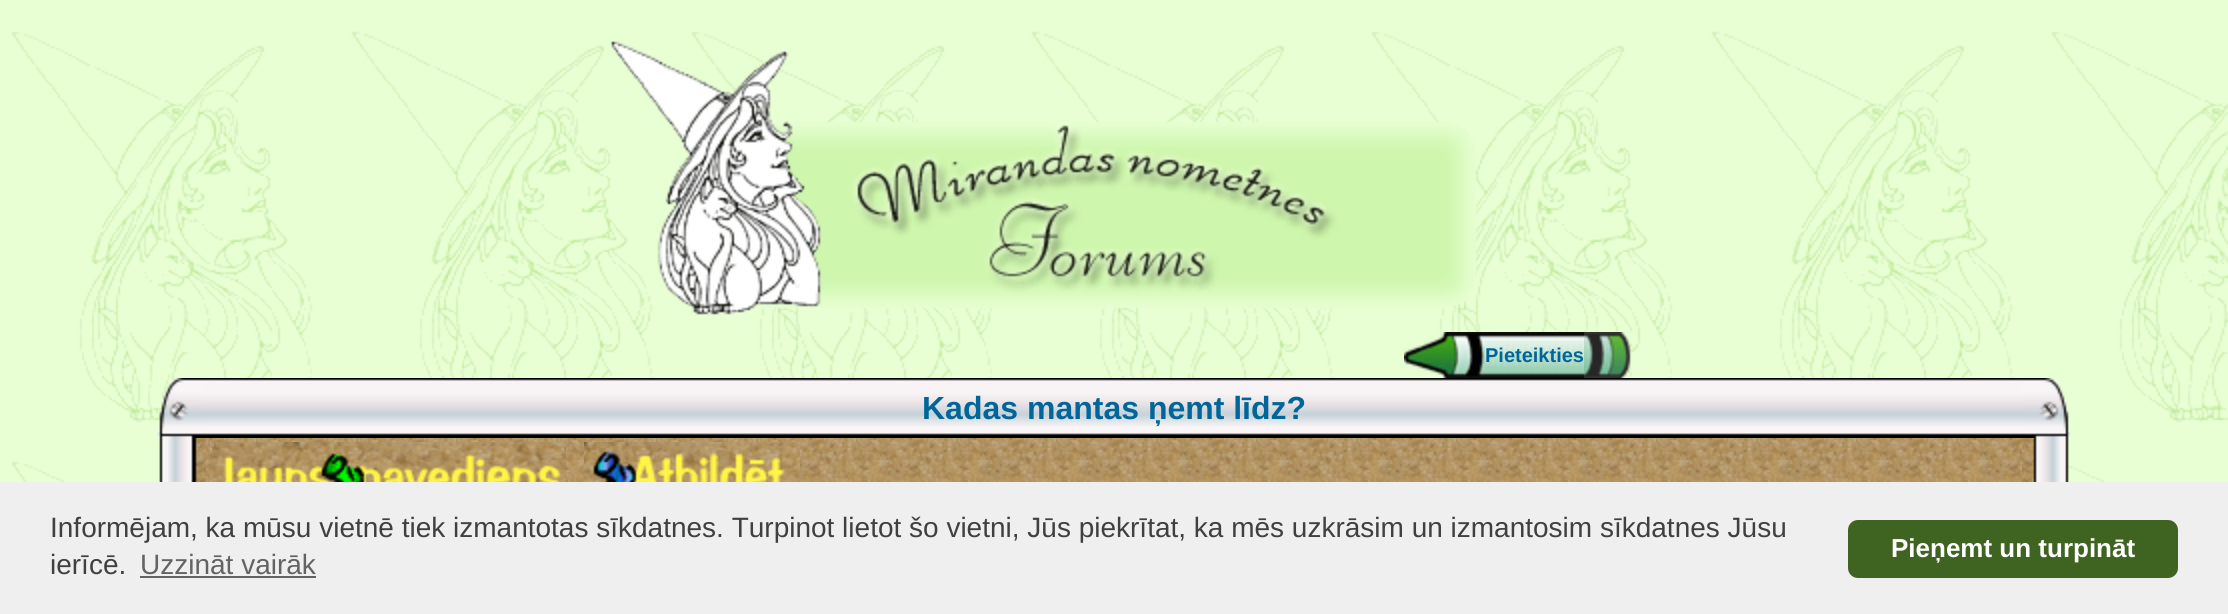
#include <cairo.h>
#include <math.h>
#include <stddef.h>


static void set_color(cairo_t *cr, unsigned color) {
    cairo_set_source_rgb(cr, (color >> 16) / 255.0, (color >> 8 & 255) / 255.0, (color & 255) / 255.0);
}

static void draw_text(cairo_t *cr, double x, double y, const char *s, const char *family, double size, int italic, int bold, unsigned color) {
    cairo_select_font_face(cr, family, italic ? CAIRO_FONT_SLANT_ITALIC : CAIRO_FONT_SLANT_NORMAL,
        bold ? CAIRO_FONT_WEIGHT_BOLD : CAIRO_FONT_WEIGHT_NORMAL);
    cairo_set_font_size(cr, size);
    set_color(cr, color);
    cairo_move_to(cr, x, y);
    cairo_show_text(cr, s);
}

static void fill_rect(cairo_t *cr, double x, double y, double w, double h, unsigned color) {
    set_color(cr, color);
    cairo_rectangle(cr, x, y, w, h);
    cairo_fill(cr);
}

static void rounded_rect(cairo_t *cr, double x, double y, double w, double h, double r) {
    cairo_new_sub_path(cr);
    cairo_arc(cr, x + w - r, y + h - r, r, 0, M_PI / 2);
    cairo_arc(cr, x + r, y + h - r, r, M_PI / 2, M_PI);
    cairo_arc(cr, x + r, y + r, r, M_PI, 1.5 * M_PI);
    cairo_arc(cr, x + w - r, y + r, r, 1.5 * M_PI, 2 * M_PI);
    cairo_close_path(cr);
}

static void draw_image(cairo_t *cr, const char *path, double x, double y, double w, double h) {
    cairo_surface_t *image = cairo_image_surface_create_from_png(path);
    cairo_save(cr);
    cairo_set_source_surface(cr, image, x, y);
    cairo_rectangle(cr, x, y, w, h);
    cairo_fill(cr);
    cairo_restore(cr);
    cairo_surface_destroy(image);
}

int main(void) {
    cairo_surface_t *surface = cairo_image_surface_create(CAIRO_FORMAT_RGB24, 2228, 614);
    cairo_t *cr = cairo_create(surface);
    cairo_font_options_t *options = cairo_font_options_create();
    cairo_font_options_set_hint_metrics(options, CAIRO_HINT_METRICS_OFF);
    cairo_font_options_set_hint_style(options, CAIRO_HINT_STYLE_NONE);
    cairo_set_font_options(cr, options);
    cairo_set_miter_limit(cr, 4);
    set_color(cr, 0xE8FFD4);
    cairo_paint(cr);
    draw_image(cr, "assets/img1.png", 11, 31, 2217, 451);
    draw_image(cr, "assets/img2.png", 610, 41, 867, 274);
    draw_image(cr, "assets/img3.png", 1404, 332, 82, 46);
    draw_image(cr, "assets/img4.png", 1486, 332, 98, 46);
    draw_text(cr, 1485, 362, "Pieteikties", "Liberation Sans", 20, 0, 1, 0x006699);
    draw_image(cr, "assets/img5.png", 1584, 332, 47, 46);
    draw_image(cr, "assets/img6.png", 157, 378, 49, 60);
    draw_image(cr, "assets/img7.png", 206, 378, 1816, 60);
    draw_text(cr, 922, 419, "Kadas mantas ņemt līdz?", "Liberation Sans", 32, 0, 1, 0x006699);
    draw_image(cr, "assets/img8.png", 2022, 378, 49, 60);
    draw_image(cr, "assets/img9.png", 159, 438, 47, 44);
    draw_image(cr, "assets/img10.png", 206, 438, 1816, 44);
    draw_image(cr, "assets/img11.png", 210, 442, 356, 40);
    draw_image(cr, "assets/img12.png", 584, 442, 216, 40);
    draw_image(cr, "assets/img13.png", 2022, 438, 47, 44);
    fill_rect(cr, 0, 482, 2228, 132, 0xEFEFEF);
    draw_text(cr, 50, 537, "Informējam, ka mūsu vietnē tiek izmantotas sīkdatnes. Turpinot lietot šo vietni, Jūs piekrītat, ka mēs uzkrāsim un izmantosim sīkdatnes Jūsu", "Liberation Sans", 28, 0, 0, 0x404040);
    draw_text(cr, 50, 574, "ierīcē.", "Liberation Sans", 28, 0, 0, 0x404040);
    draw_text(cr, 140, 574, "Uzzināt vairāk", "Liberation Sans", 28, 0, 0, 0x636363);
    fill_rect(cr, 140, 576, 176, 2, 0x636363);
    set_color(cr, 0x3F6320);
    rounded_rect(cr, 1848, 520, 330, 58, 10);
    cairo_fill(cr);
    draw_text(cr, 1891, 557, "Pieņemt un turpināt", "Liberation Sans", 26, 0, 1, 0xFFFFFF);
    cairo_surface_write_to_png(surface, "output.png");
    cairo_font_options_destroy(options);
    cairo_destroy(cr);
    cairo_surface_destroy(surface);
    return 0;
}
